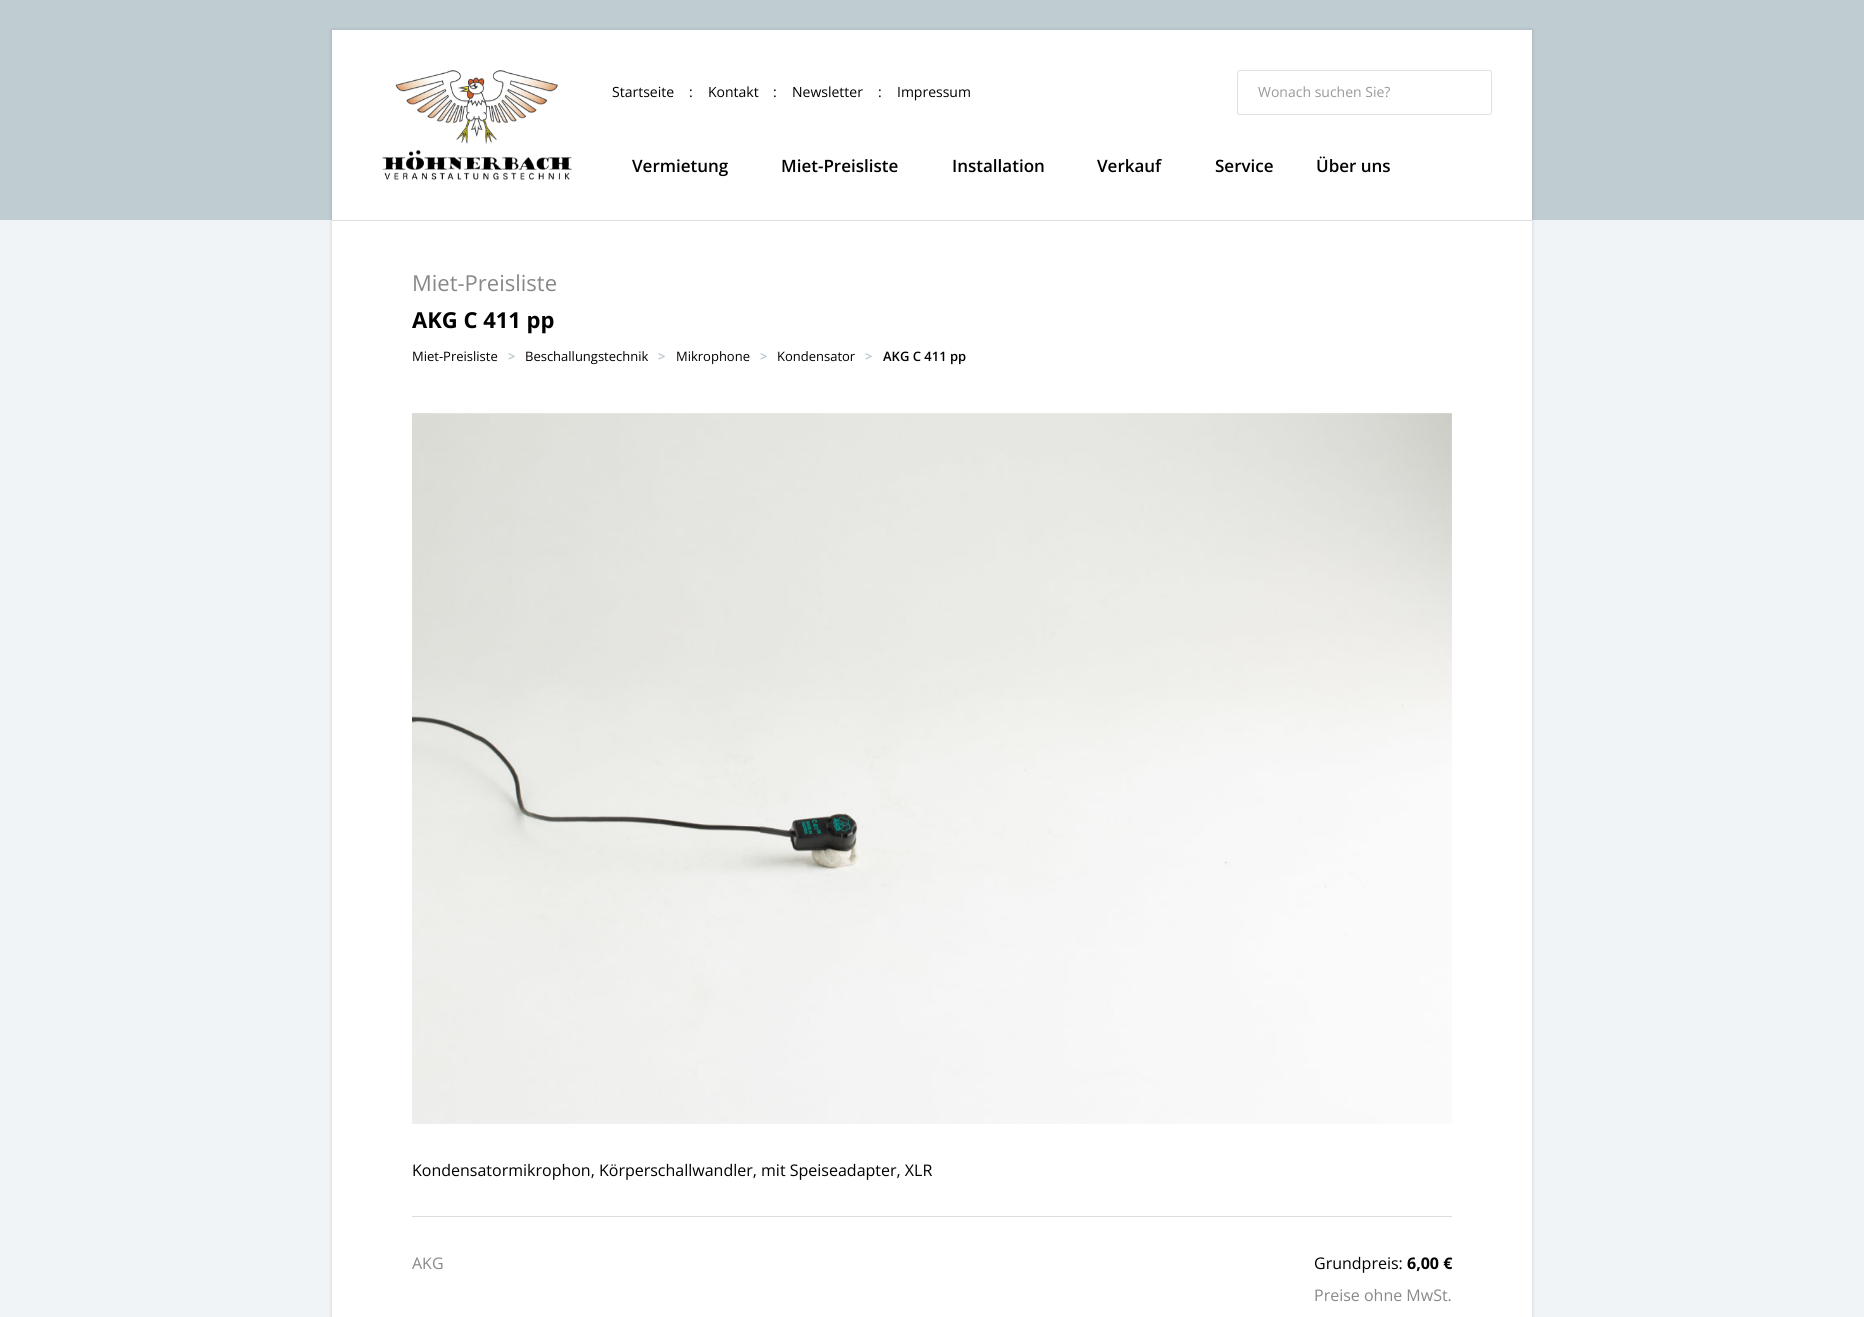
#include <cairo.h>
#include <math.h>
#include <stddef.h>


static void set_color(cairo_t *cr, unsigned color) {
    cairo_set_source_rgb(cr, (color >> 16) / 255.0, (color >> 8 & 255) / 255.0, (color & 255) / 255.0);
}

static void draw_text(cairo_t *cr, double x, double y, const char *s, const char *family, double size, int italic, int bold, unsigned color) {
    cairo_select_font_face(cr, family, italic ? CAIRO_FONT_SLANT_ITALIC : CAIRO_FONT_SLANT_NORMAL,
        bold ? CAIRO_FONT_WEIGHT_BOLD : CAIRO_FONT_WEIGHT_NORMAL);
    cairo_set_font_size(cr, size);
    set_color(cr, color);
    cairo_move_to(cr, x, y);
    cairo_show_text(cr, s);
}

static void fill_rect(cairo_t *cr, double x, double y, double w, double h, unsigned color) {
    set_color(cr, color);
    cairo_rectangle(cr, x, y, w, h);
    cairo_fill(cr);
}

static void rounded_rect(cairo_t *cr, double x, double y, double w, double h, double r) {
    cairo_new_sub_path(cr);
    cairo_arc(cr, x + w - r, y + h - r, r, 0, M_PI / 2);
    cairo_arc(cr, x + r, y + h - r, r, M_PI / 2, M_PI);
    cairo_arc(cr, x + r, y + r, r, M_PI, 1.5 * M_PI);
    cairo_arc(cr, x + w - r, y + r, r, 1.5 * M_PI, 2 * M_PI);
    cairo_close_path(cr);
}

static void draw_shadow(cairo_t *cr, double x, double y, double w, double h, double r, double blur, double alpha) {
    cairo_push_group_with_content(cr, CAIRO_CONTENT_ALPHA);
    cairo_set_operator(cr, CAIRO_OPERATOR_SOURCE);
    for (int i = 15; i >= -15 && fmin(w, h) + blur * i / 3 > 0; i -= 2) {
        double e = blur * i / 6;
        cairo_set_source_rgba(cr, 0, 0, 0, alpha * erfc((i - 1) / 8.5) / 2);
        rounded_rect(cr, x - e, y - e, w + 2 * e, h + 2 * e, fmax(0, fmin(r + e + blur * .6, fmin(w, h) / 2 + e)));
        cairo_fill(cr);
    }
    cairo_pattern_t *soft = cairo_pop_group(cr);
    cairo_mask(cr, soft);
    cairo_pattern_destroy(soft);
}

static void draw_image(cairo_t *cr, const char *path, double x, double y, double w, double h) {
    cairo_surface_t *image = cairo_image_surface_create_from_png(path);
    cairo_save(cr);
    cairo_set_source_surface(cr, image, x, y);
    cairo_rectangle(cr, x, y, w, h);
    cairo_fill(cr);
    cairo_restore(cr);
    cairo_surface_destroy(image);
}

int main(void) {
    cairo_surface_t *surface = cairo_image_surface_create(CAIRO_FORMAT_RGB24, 1864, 1317);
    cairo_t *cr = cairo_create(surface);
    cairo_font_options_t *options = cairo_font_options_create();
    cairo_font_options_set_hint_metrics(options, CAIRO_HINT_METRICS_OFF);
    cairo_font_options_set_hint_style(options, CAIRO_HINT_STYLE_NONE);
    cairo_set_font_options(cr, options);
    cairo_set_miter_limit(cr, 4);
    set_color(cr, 0xF0F4F7);
    cairo_paint(cr);
    fill_rect(cr, 0, 0, 1864, 220, 0xBFCCD2);
    set_color(cr, 0x000000);
    draw_shadow(cr, 332, 30, 1200, 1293, 0, 2, 0.15);
    fill_rect(cr, 332, 30, 1200, 1287, 0xFFFFFF);
    fill_rect(cr, 332, 220, 1200, 1, 0xDDDDDD);
    draw_image(cr, "assets/img1.png", 382, 70, 190, 110);
    draw_text(cr, 612, 97, "Startseite", "Open Sans", 14, 0, 0, 0x000000);
    draw_text(cr, 689, 97, ":", "Open Sans", 14, 0, 0, 0x000000);
    draw_text(cr, 708, 97, "Kontakt", "Open Sans", 14, 0, 0, 0x000000);
    draw_text(cr, 773, 97, ":", "Open Sans", 14, 0, 0, 0x000000);
    draw_text(cr, 792, 97, "Newsletter", "Open Sans", 14, 0, 0, 0x000000);
    draw_text(cr, 878, 97, ":", "Open Sans", 14, 0, 0, 0x000000);
    draw_text(cr, 897, 97, "Impressum", "Open Sans", 14, 0, 0, 0x000000);
    rounded_rect(cr, 1237.5, 70.5, 254, 44, 2.5);
    set_color(cr, 0xE1E1E1);
    cairo_set_line_width(cr, 1);
    cairo_stroke(cr);
    draw_text(cr, 1258, 97, "Wonach suchen Sie?", "Open Sans", 14, 0, 0, 0x999999);
    draw_text(cr, 632, 172, "Vermietung", "Open Sans SemiBold", 17, 0, 0, 0x000000);
    draw_text(cr, 781, 172, "Miet-Preisliste", "Open Sans SemiBold", 17, 0, 0, 0x000000);
    draw_text(cr, 952, 172, "Installation", "Open Sans SemiBold", 17, 0, 0, 0x000000);
    draw_text(cr, 1097, 172, "Verkauf", "Open Sans SemiBold", 17, 0, 0, 0x000000);
    draw_text(cr, 1215, 172, "Service", "Open Sans SemiBold", 17, 0, 0, 0x000000);
    draw_text(cr, 1316, 172, "Über uns", "Open Sans SemiBold", 17, 0, 0, 0x000000);
    draw_text(cr, 412, 291, "Miet-Preisliste", "Open Sans", 22, 0, 0, 0x888888);
    draw_text(cr, 412, 328, "AKG C 411 pp", "Open Sans", 22, 0, 1, 0x000000);
    draw_text(cr, 412, 361, "Miet-Preisliste", "Open Sans", 13, 0, 0, 0x000000);
    draw_text(cr, 508, 361, ">", "Open Sans", 13, 0, 1, 0xBFCCD2);
    draw_text(cr, 525, 361, "Beschallungstechnik", "Open Sans", 13, 0, 0, 0x000000);
    draw_text(cr, 658, 361, ">", "Open Sans", 13, 0, 1, 0xBFCCD2);
    draw_text(cr, 676, 361, "Mikrophone", "Open Sans", 13, 0, 0, 0x000000);
    draw_text(cr, 760, 361, ">", "Open Sans", 13, 0, 1, 0xBFCCD2);
    draw_text(cr, 777, 361, "Kondensator", "Open Sans", 13, 0, 0, 0x000000);
    draw_text(cr, 865, 361, ">", "Open Sans", 13, 0, 1, 0xBFCCD2);
    draw_text(cr, 883, 361, "AKG C 411 pp", "Open Sans SemiBold", 13, 0, 0, 0x000000);
    draw_image(cr, "assets/img2.png", 412, 413, 1040, 711);
    draw_text(cr, 412, 1176, "Kondensatormikrophon, Körperschallwandler, mit Speiseadapter, XLR", "Open Sans", 16, 0, 0, 0x000000);
    fill_rect(cr, 412, 1216, 1040, 1, 0xDDDDDD);
    draw_text(cr, 412, 1269, "AKG", "Open Sans", 16, 0, 0, 0x888888);
    draw_text(cr, 1314, 1269, "Grundpreis:", "Open Sans", 16, 0, 0, 0x000000);
    draw_text(cr, 1407, 1269, "6,00 €", "Open Sans", 16, 0, 1, 0x000000);
    draw_text(cr, 1314, 1301, "Preise ohne MwSt.", "Open Sans", 16, 0, 0, 0x888888);
    cairo_surface_write_to_png(surface, "output.png");
    cairo_font_options_destroy(options);
    cairo_destroy(cr);
    cairo_surface_destroy(surface);
    return 0;
}
